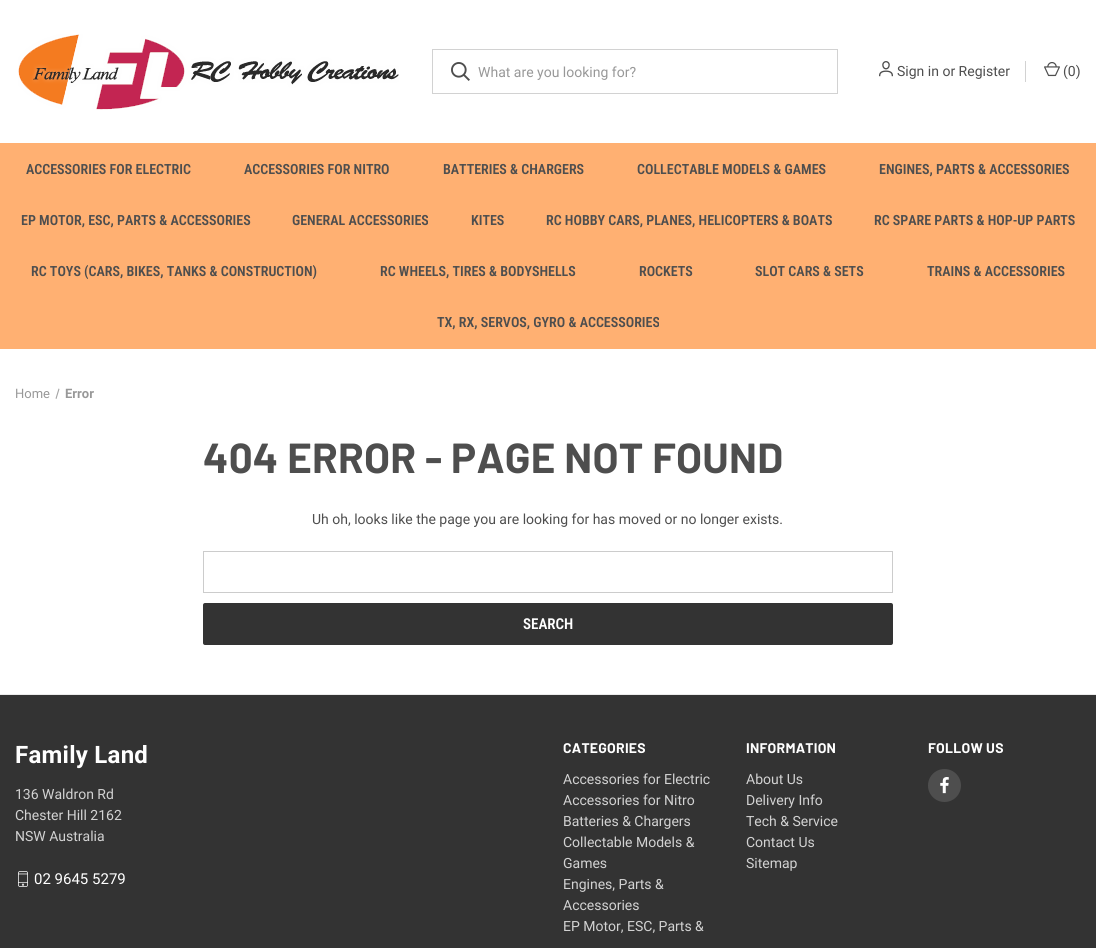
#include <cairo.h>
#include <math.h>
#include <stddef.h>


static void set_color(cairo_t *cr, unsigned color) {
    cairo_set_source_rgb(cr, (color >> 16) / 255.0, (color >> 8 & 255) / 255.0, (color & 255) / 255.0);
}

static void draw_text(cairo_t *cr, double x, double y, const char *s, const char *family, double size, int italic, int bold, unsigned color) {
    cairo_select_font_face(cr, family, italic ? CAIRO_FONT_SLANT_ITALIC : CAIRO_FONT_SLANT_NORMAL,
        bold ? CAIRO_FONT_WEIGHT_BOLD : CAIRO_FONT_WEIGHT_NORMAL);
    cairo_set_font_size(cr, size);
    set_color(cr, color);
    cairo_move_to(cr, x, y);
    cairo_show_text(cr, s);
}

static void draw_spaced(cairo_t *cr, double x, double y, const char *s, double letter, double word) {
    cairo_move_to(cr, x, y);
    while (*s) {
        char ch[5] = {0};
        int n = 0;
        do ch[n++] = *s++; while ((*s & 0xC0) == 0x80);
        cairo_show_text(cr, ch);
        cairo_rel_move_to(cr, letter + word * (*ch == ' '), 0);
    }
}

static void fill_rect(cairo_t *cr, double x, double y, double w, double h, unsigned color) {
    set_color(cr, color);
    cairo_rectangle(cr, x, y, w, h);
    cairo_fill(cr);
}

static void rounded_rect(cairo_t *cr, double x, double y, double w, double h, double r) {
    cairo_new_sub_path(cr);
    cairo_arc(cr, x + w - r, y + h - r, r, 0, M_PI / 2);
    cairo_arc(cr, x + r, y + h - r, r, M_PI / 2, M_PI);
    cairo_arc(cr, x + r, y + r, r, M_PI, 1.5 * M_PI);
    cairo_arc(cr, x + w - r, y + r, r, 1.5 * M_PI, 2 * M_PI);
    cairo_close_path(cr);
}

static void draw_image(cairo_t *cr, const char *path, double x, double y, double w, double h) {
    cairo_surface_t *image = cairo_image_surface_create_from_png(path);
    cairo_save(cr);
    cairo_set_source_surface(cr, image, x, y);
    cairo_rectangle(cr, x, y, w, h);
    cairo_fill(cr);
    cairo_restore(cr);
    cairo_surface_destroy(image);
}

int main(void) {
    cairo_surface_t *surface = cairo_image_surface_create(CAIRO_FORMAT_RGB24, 1096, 948);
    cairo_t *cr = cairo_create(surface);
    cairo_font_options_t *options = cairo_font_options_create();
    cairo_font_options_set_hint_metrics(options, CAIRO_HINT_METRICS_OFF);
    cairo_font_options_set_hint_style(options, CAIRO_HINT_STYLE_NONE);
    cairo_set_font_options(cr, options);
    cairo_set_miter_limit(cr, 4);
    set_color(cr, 0xFFFFFF);
    cairo_paint(cr);
    draw_image(cr, "assets/img1.png", 18, 34, 381, 76);
    cairo_rectangle(cr, 432.5, 49.5, 405, 44);
    set_color(cr, 0xD2D2D2);
    cairo_set_line_width(cr, 1);
    cairo_stroke(cr);
    draw_image(cr, "assets/img2.png", 451, 62, 19, 19);
    draw_text(cr, 478, 77, "What are you looking for?", "Roboto", 14, 0, 0, 0x989898);
    draw_image(cr, "assets/img3.png", 879, 61, 14, 16);
    draw_text(cr, 897, 76, "Sign in or Register", "Roboto", 14, 0, 0, 0x4E4E4E);
    fill_rect(cr, 1025, 61, 1, 21, 0xD2D2D2);
    draw_image(cr, "assets/img4.png", 1044, 62, 16, 15);
    draw_text(cr, 1063, 76, "(0)", "Roboto", 14, 0, 0, 0x4E4E4E);
    fill_rect(cr, 0, 143, 1096, 206, 0xFFB072);
    draw_text(cr, 26, 174, "ACCESSORIES FOR ELECTRIC", "Roboto Condensed SemiBold", 14, 0, 0, 0x4E4E4E);
    draw_text(cr, 244, 174, "ACCESSORIES FOR NITRO", "Roboto Condensed SemiBold", 14, 0, 0, 0x4E4E4E);
    draw_text(cr, 443, 174, "BATTERIES & CHARGERS", "Roboto Condensed SemiBold", 14, 0, 0, 0x4E4E4E);
    draw_text(cr, 637, 174, "COLLECTABLE MODELS & GAMES", "Roboto Condensed SemiBold", 14, 0, 0, 0x4E4E4E);
    draw_text(cr, 879, 174, "ENGINES, PARTS & ACCESSORIES", "Roboto Condensed SemiBold", 14, 0, 0, 0x4E4E4E);
    draw_text(cr, 21, 225, "EP MOTOR, ESC, PARTS & ACCESSORIES", "Roboto Condensed SemiBold", 14, 0, 0, 0x4E4E4E);
    draw_text(cr, 292, 225, "GENERAL ACCESSORIES", "Roboto Condensed SemiBold", 14, 0, 0, 0x4E4E4E);
    draw_text(cr, 471, 225, "KITES", "Roboto Condensed SemiBold", 14, 0, 0, 0x4E4E4E);
    draw_text(cr, 546, 225, "RC HOBBY CARS, PLANES, HELICOPTERS & BOATS", "Roboto Condensed SemiBold", 14, 0, 0, 0x4E4E4E);
    draw_text(cr, 874, 225, "RC SPARE PARTS & HOP-UP PARTS", "Roboto Condensed SemiBold", 14, 0, 0, 0x4E4E4E);
    draw_text(cr, 31, 276, "RC TOYS (CARS, BIKES, TANKS & CONSTRUCTION)", "Roboto Condensed SemiBold", 14, 0, 0, 0x4E4E4E);
    draw_text(cr, 380, 276, "RC WHEELS, TIRES & BODYSHELLS", "Roboto Condensed SemiBold", 14, 0, 0, 0x4E4E4E);
    draw_text(cr, 639, 276, "ROCKETS", "Roboto Condensed SemiBold", 14, 0, 0, 0x4E4E4E);
    draw_text(cr, 755, 276, "SLOT CARS & SETS", "Roboto Condensed SemiBold", 14, 0, 0, 0x4E4E4E);
    draw_text(cr, 927, 276, "TRAINS & ACCESSORIES", "Roboto Condensed SemiBold", 14, 0, 0, 0x4E4E4E);
    draw_text(cr, 437, 327, "TX, RX, SERVOS, GYRO & ACCESSORIES", "Roboto Condensed SemiBold", 14, 0, 0, 0x4E4E4E);
    draw_text(cr, 15, 398, "Home", "Roboto", 13, 0, 0, 0x989898);
    set_color(cr, 0xA3A3A3);
    cairo_new_path(cr);
    cairo_move_to(cr, 58.5, 388.5);
    cairo_line_to(cr, 59.5, 389);
    cairo_line_to(cr, 56.5, 399);
    cairo_line_to(cr, 55.5, 398.5);
    cairo_close_path(cr);
    cairo_fill(cr);
    draw_text(cr, 65, 398, "Error", "Roboto", 13, 0, 1, 0x989898);
    cairo_select_font_face(cr, "Barlow", CAIRO_FONT_SLANT_NORMAL, CAIRO_FONT_WEIGHT_BOLD);
    cairo_set_font_size(cr, 42);
    set_color(cr, 0x4E4E4E);
    draw_spaced(cr, 203, 473, "404 ERROR - PAGE NOT FOUND", 0.25, 0);
    draw_text(cr, 312, 524, "Uh oh, looks like the page you are looking for has moved or no longer exists.", "Roboto", 14, 0, 0, 0x4E4E4E);
    cairo_rectangle(cr, 203.5, 551.5, 689, 41);
    set_color(cr, 0xCCCCCC);
    cairo_stroke(cr);
    set_color(cr, 0x333333);
    rounded_rect(cr, 203, 603, 690, 42, 2);
    cairo_fill(cr);
    draw_text(cr, 523, 629, "SEARCH", "Roboto Condensed SemiBold", 15, 0, 0, 0xFFFFFF);
    fill_rect(cr, 0, 695, 1096, 253, 0x333333);
    fill_rect(cr, 0, 694, 1096, 1, 0xEBEBEB);
    cairo_select_font_face(cr, "Roboto", CAIRO_FONT_SLANT_NORMAL, CAIRO_FONT_WEIGHT_BOLD);
    cairo_set_font_size(cr, 24);
    set_color(cr, 0xFFFFFF);
    draw_spaced(cr, 15, 763, "Family Land", 0.25, 0);
    draw_text(cr, 15, 799, "136 Waldron Rd", "Roboto", 14, 0, 0, 0xD2D2D2);
    draw_text(cr, 15, 820, "Chester Hill 2162", "Roboto", 14, 0, 0, 0xD2D2D2);
    draw_text(cr, 15, 841, "NSW Australia", "Roboto", 14, 0, 0, 0xD2D2D2);
    draw_image(cr, "assets/img5.png", 18, 871, 10, 16);
    draw_text(cr, 34, 884, "02 9645 5279", "Roboto", 15, 0, 0, 0xFFFFFF);
    cairo_select_font_face(cr, "Barlow", CAIRO_FONT_SLANT_NORMAL, CAIRO_FONT_WEIGHT_BOLD);
    cairo_set_font_size(cr, 14);
    draw_spaced(cr, 563, 753, "CATEGORIES", 0.25, 0);
    draw_text(cr, 563, 784, "Accessories for Electric", "Roboto", 14, 0, 0, 0xD2D2D2);
    draw_text(cr, 563, 805, "Accessories for Nitro", "Roboto", 14, 0, 0, 0xD2D2D2);
    draw_text(cr, 563, 826, "Batteries & Chargers", "Roboto", 14, 0, 0, 0xD2D2D2);
    draw_text(cr, 563, 847, "Collectable Models &", "Roboto", 14, 0, 0, 0xD2D2D2);
    draw_text(cr, 563, 868, "Games", "Roboto", 14, 0, 0, 0xD2D2D2);
    draw_text(cr, 563, 889, "Engines, Parts &", "Roboto", 14, 0, 0, 0xD2D2D2);
    draw_text(cr, 563, 910, "Accessories", "Roboto", 14, 0, 0, 0xD2D2D2);
    draw_text(cr, 563, 931, "EP Motor, ESC, Parts &", "Roboto", 14, 0, 0, 0xD2D2D2);
    cairo_select_font_face(cr, "Barlow", CAIRO_FONT_SLANT_NORMAL, CAIRO_FONT_WEIGHT_BOLD);
    set_color(cr, 0xFFFFFF);
    draw_spaced(cr, 746, 753, "INFORMATION", 0.25, 0);
    draw_text(cr, 746, 784, "About Us", "Roboto", 14, 0, 0, 0xD2D2D2);
    draw_text(cr, 746, 805, "Delivery Info", "Roboto", 14, 0, 0, 0xD2D2D2);
    draw_text(cr, 746, 826, "Tech & Service", "Roboto", 14, 0, 0, 0xD2D2D2);
    draw_text(cr, 746, 847, "Contact Us", "Roboto", 14, 0, 0, 0xD2D2D2);
    draw_text(cr, 746, 868, "Sitemap", "Roboto", 14, 0, 0, 0xD2D2D2);
    cairo_select_font_face(cr, "Barlow", CAIRO_FONT_SLANT_NORMAL, CAIRO_FONT_WEIGHT_BOLD);
    set_color(cr, 0xFFFFFF);
    draw_spaced(cr, 928, 753, "FOLLOW US", 0.25, 0);
    set_color(cr, 0x4E4E4E);
    cairo_new_path(cr);
    cairo_arc(cr, 944.5, 785.5, 16.5, 0, 2 * M_PI);
    cairo_fill(cr);
    draw_image(cr, "assets/img6.png", 940, 777, 9, 17);
    cairo_surface_write_to_png(surface, "output.png");
    cairo_font_options_destroy(options);
    cairo_destroy(cr);
    cairo_surface_destroy(surface);
    return 0;
}
